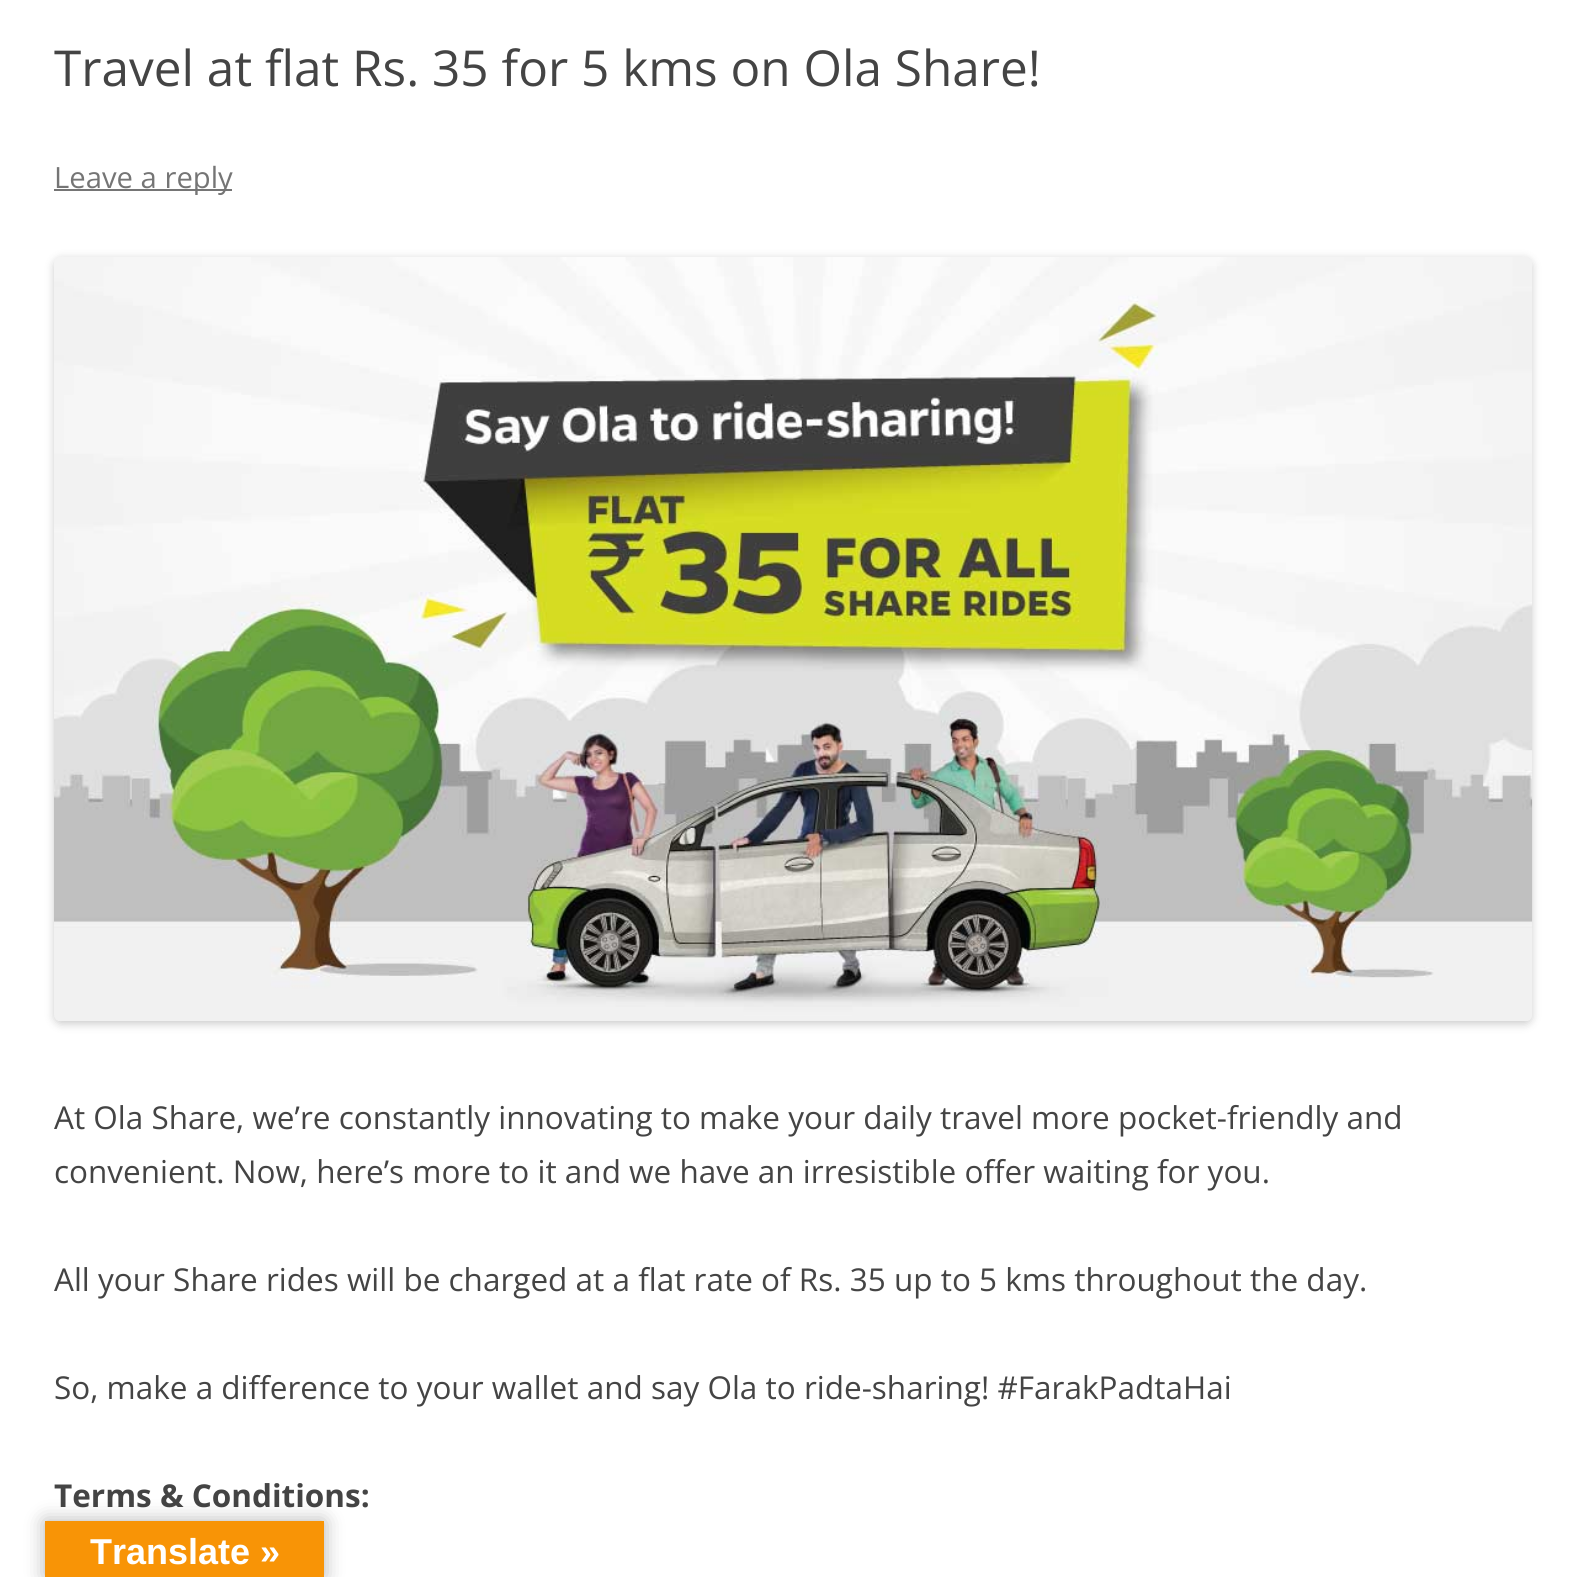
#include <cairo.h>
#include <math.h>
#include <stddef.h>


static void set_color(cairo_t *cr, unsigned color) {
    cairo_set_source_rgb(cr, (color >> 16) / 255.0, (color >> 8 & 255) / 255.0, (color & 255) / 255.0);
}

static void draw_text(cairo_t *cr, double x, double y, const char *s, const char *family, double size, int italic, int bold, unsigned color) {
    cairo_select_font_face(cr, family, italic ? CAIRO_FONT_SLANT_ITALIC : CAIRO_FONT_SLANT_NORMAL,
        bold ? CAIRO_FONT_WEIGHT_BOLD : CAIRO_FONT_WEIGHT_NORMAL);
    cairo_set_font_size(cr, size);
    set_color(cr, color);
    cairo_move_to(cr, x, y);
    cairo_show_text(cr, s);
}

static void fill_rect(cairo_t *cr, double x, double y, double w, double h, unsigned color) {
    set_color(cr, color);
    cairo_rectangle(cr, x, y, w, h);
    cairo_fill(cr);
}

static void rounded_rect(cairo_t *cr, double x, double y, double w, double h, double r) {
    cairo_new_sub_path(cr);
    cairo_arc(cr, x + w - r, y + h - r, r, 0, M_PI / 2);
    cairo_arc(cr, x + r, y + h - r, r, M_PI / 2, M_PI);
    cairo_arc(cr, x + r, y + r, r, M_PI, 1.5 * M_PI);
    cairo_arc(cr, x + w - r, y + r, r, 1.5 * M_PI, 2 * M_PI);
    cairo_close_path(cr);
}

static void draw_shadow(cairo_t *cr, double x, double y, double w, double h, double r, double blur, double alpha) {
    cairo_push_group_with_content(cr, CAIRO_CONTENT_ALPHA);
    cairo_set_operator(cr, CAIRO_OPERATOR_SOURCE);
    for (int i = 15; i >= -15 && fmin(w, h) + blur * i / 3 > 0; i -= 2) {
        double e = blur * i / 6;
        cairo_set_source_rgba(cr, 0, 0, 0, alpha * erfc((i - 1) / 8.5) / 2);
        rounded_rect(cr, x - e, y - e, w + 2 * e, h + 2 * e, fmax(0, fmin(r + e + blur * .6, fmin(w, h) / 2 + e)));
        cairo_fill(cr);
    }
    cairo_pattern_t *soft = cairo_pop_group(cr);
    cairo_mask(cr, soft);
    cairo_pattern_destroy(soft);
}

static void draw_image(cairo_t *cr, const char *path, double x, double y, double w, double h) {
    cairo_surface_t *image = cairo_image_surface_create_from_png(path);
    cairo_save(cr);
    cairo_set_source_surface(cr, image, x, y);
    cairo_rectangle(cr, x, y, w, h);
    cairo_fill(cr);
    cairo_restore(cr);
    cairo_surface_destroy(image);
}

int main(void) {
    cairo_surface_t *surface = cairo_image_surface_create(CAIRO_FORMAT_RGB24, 1585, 1577);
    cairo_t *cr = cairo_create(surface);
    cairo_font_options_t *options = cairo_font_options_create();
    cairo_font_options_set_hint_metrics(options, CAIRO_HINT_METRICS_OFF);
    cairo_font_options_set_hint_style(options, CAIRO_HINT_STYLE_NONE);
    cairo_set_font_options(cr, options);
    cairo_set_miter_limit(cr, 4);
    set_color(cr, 0xFFFFFF);
    cairo_paint(cr);
    draw_text(cr, 54, 86, "Travel at flat Rs. 35 for 5 kms on Ola Share!", "Open Sans", 49.5, 0, 0, 0x444444);
    fill_rect(cr, 54, 189, 178, 2, 0x757575);
    draw_text(cr, 54, 188, "Leave a reply", "Open Sans", 29.25, 0, 0, 0x757575);
    set_color(cr, 0x000000);
    draw_shadow(cr, 54, 259, 1478, 765, 7, 4.5, 0.2);
    draw_image(cr, "assets/img1.png", 54, 257, 1479, 764);
    draw_text(cr, 54, 1129, "At Ola Share, we’re constantly innovating to make your daily travel more pocket-friendly and", "Open Sans", 31.5, 0, 0, 0x444444);
    draw_text(cr, 54, 1183, "convenient. Now, here’s more to it and we have an irresistible offer waiting for you.", "Open Sans", 31.5, 0, 0, 0x444444);
    draw_text(cr, 54, 1291, "All your Share rides will be charged at a flat rate of Rs. 35 up to 5 kms throughout the day.", "Open Sans", 31.5, 0, 0, 0x444444);
    draw_text(cr, 54, 1399, "So, make a difference to your wallet and say Ola to ride-sharing! #FarakPadtaHai", "Open Sans", 31.5, 0, 0, 0x444444);
    draw_text(cr, 54, 1507, "Terms & Conditions:", "Open Sans", 31.5, 0, 1, 0x444444);
    set_color(cr, 0x000000);
    draw_shadow(cr, 45, 1521, 279, 56, 0, 10, 0.3);
    fill_rect(cr, 45, 1521, 279, 56, 0xF89406);
    draw_text(cr, 90, 1564, "Translate »", "Liberation Sans", 36, 0, 1, 0xFFFFFF);
    cairo_surface_write_to_png(surface, "output.png");
    cairo_font_options_destroy(options);
    cairo_destroy(cr);
    cairo_surface_destroy(surface);
    return 0;
}
